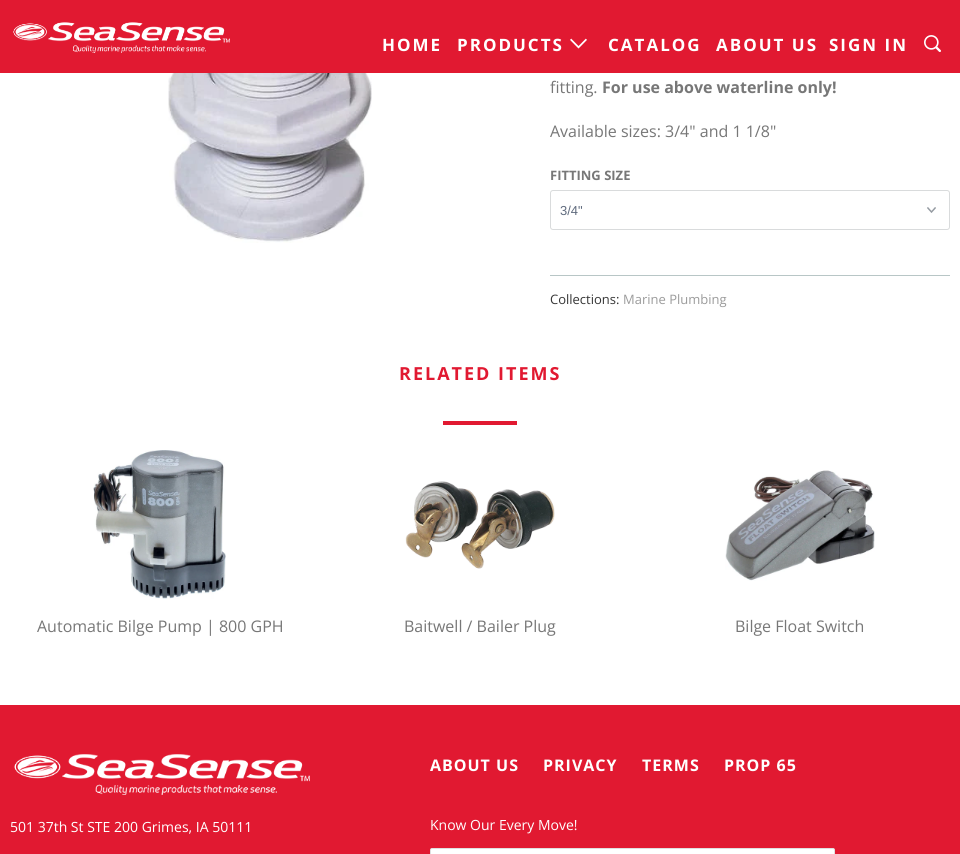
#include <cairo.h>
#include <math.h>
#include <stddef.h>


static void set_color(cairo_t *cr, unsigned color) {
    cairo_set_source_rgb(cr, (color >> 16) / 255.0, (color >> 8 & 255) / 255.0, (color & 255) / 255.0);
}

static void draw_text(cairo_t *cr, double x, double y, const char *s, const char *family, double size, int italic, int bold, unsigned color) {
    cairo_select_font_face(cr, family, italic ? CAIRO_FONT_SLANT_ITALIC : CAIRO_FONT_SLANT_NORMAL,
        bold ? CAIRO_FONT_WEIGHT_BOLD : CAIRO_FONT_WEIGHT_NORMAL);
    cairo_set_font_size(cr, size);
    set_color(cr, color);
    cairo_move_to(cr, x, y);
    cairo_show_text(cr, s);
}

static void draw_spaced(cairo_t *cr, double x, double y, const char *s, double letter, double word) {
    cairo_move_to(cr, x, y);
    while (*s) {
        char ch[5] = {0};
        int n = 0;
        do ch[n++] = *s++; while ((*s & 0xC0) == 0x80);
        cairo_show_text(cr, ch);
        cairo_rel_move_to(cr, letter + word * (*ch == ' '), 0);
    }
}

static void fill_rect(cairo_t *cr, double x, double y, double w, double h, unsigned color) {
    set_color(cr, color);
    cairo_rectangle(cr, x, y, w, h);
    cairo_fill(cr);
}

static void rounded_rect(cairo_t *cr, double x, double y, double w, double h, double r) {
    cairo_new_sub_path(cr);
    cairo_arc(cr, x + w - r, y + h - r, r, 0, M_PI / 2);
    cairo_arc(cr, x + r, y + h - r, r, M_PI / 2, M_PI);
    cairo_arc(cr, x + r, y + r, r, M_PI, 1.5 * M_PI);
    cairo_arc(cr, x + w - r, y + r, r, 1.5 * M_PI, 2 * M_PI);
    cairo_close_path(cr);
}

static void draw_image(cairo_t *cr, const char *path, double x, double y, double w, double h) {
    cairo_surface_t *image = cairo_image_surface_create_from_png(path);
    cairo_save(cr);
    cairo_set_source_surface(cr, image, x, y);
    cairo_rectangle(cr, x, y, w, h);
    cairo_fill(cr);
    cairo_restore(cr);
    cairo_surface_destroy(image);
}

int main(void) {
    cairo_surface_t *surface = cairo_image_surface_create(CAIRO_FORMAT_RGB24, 960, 854);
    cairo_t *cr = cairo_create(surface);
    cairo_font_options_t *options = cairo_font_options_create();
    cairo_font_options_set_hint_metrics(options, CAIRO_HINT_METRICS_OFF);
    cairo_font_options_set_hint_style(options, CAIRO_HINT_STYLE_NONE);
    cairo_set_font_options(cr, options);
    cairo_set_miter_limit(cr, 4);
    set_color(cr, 0xFFFFFF);
    cairo_paint(cr);
    fill_rect(cr, 0, 0, 960, 73, 0xE11931);
    draw_image(cr, "assets/img1.png", 13, 22, 217, 31);
    cairo_select_font_face(cr, "Open Sans", CAIRO_FONT_SLANT_NORMAL, CAIRO_FONT_WEIGHT_BOLD);
    cairo_set_font_size(cr, 17);
    set_color(cr, 0xFFFFFF);
    draw_spaced(cr, 382, 51, "HOME", 2, 0);
    draw_spaced(cr, 457, 51, "PRODUCTS", 2, 0);
    draw_image(cr, "assets/img2.png", 570, 38, 17, 11);
    draw_spaced(cr, 608, 51, "CATALOG", 2, 0);
    draw_spaced(cr, 716, 51, "ABOUT US", 2, 0);
    draw_spaced(cr, 829, 51, "SIGN IN", 2, 0);
    draw_image(cr, "assets/img3.png", 924, 35, 17, 17);
    draw_image(cr, "assets/img4.png", 168, 73, 204, 170);
    draw_text(cr, 550, 93, "fitting.", "Open Sans", 16, 0, 0, 0x777777);
    draw_text(cr, 602, 93, "For use above waterline only!", "Open Sans", 16, 0, 1, 0x777777);
    draw_text(cr, 550, 137, "Available sizes: 3/4\" and 1 1/8\"", "Open Sans", 16, 0, 0, 0x777777);
    draw_text(cr, 550, 180, "FITTING SIZE", "Open Sans", 13, 0, 1, 0x777777);
    draw_image(cr, "assets/img5.png", 927, 207, 9, 6);
    rounded_rect(cr, 550.5, 190.5, 399, 39, 2.5);
    set_color(cr, 0xD9DBDC);
    cairo_set_line_width(cr, 1);
    cairo_stroke(cr);
    draw_text(cr, 560, 215, "3/4\"", "Liberation Sans", 13, 0, 0, 0x5F6A7D);
    fill_rect(cr, 550, 275, 400, 1, 0xB8C6C6);
    draw_text(cr, 550, 304, "Collections:", "Open Sans", 13, 0, 0, 0x363636);
    draw_text(cr, 623, 304, "Marine Plumbing", "Open Sans", 13, 0, 0, 0x9B9B9B);
    cairo_select_font_face(cr, "Open Sans", CAIRO_FONT_SLANT_NORMAL, CAIRO_FONT_WEIGHT_BOLD);
    cairo_set_font_size(cr, 18);
    set_color(cr, 0xE11931);
    draw_spaced(cr, 399, 380, "RELATED ITEMS", 2, 0);
    fill_rect(cr, 443, 421, 74, 4, 0xE11931);
    draw_image(cr, "assets/img6.png", 93, 450, 133, 149);
    draw_text(cr, 37, 632, "Automatic Bilge Pump | 800 GPH", "Open Sans", 16, 0, 0, 0x777777);
    draw_image(cr, "assets/img7.png", 405, 481, 150, 88);
    draw_text(cr, 404, 632, "Baitwell / Bailer Plug", "Open Sans", 16, 0, 0, 0x777777);
    draw_image(cr, "assets/img8.png", 725, 470, 150, 111);
    draw_text(cr, 735, 632, "Bilge Float Switch", "Open Sans", 16, 0, 0, 0x777777);
    fill_rect(cr, 0, 705, 960, 149, 0xE11931);
    draw_image(cr, "assets/img9.png", 14, 754, 296, 41);
    draw_text(cr, 10, 832, "501 37th St STE 200 Grimes, IA 50111", "Open Sans", 14, 0, 0, 0xFFFFFF);
    cairo_select_font_face(cr, "Open Sans", CAIRO_FONT_SLANT_NORMAL, CAIRO_FONT_WEIGHT_BOLD);
    cairo_set_font_size(cr, 16);
    draw_spaced(cr, 430, 771, "ABOUT US", 1, 0);
    draw_spaced(cr, 543, 771, "PRIVACY", 1, 0);
    draw_spaced(cr, 642, 771, "TERMS", 1, 0);
    draw_spaced(cr, 724, 771, "PROP 65", 1, 0);
    draw_text(cr, 430, 830, "Know Our Every Move!", "Open Sans", 14, 0, 0, 0xFFFFFF);
    rounded_rect(cr, 430.5, 848.5, 404, 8, 1.5);
    cairo_fill_preserve(cr);
    set_color(cr, 0xDFDFDF);
    cairo_stroke(cr);
    cairo_surface_write_to_png(surface, "output.png");
    cairo_font_options_destroy(options);
    cairo_destroy(cr);
    cairo_surface_destroy(surface);
    return 0;
}
